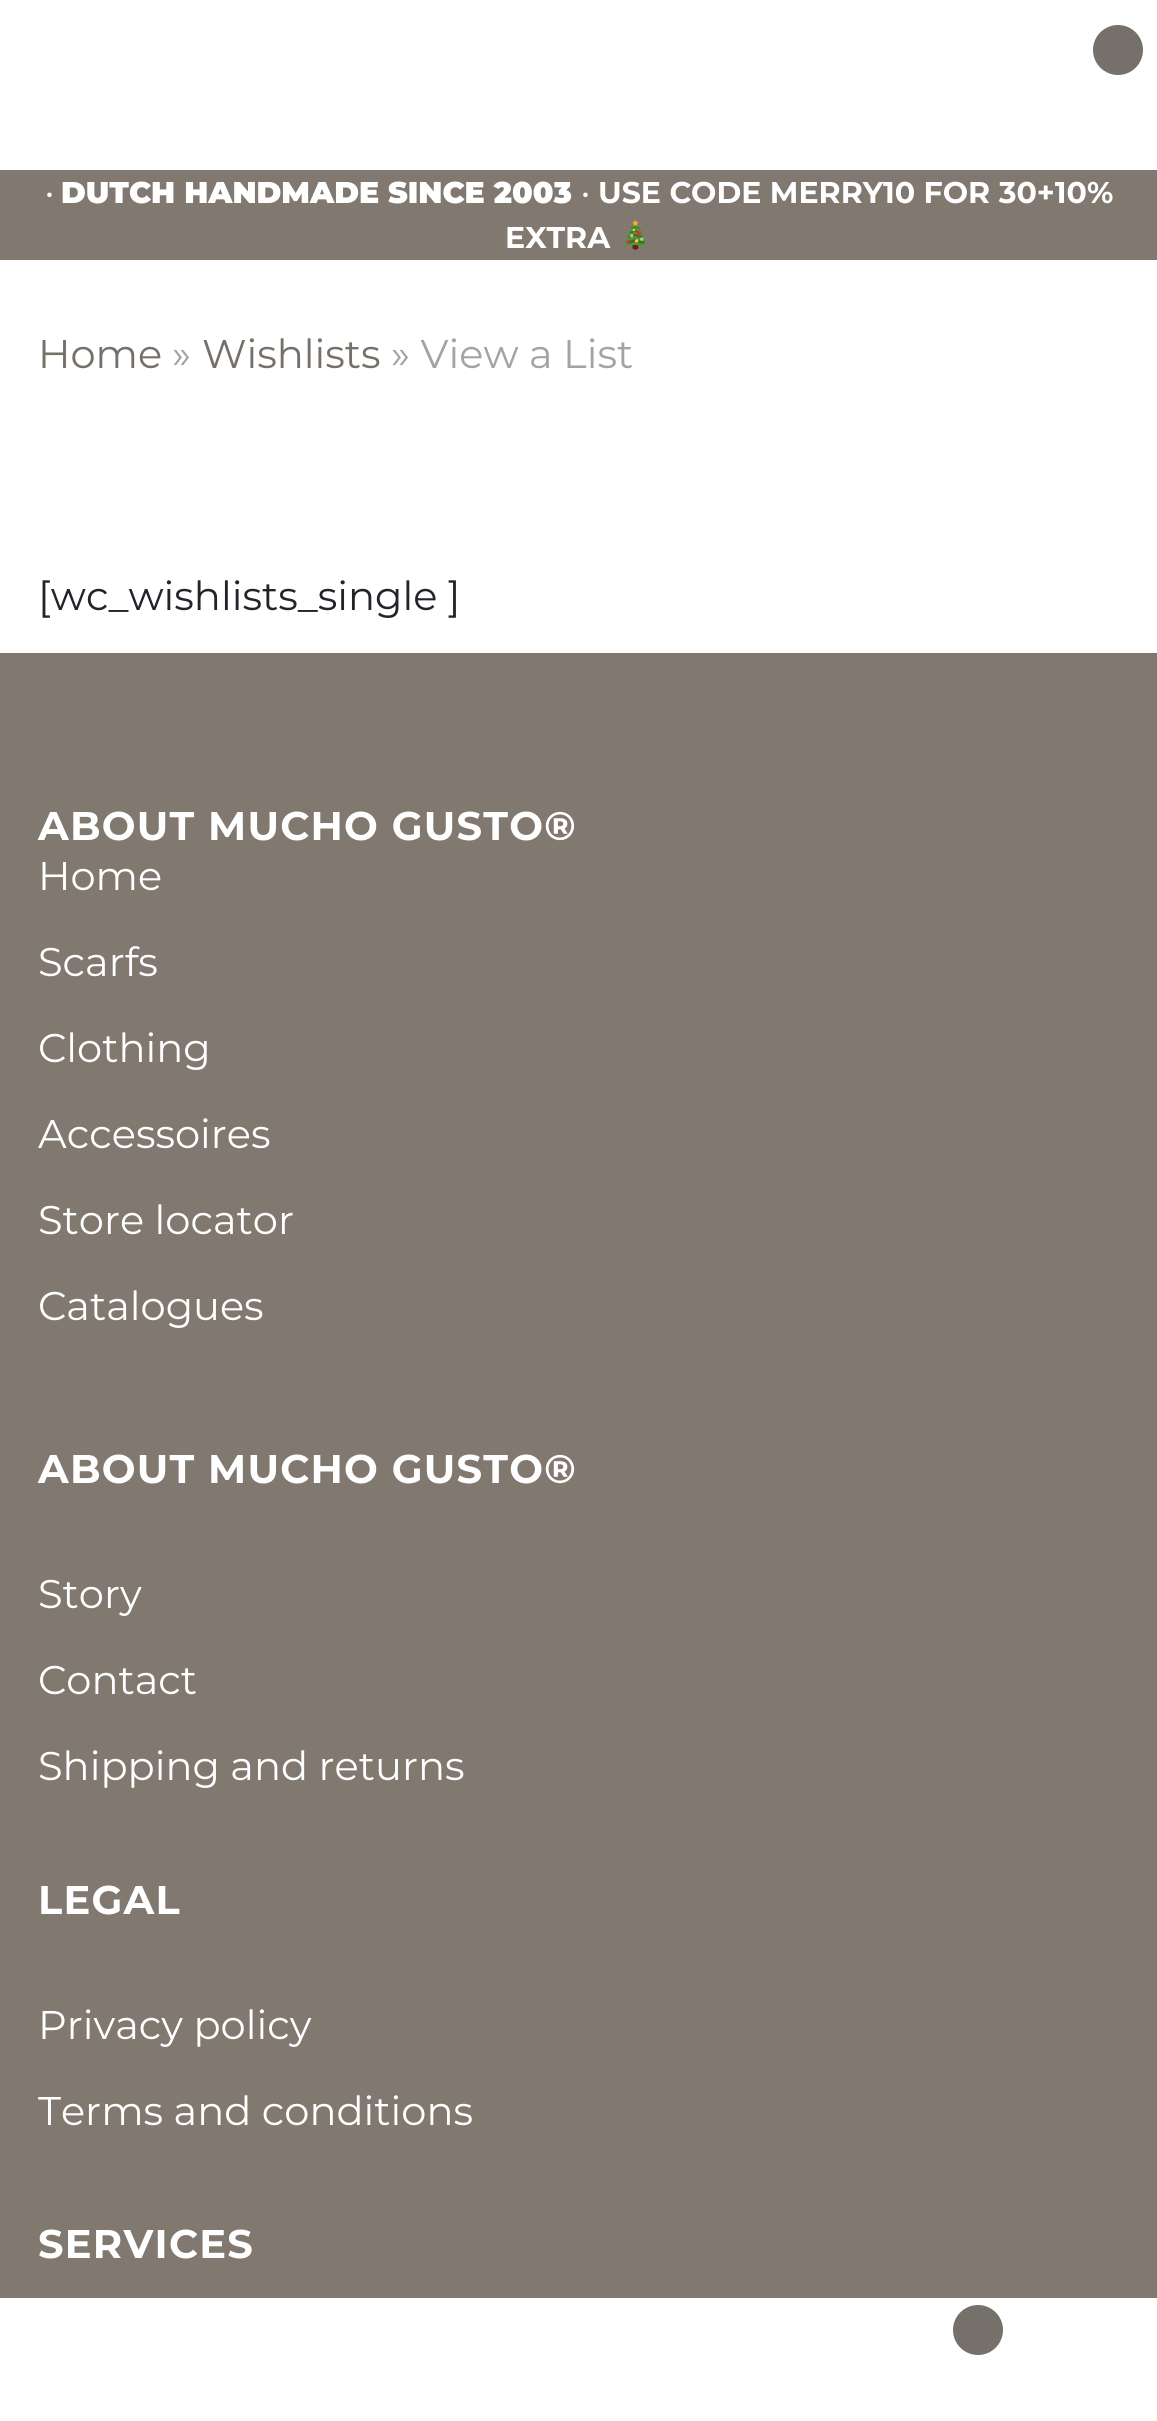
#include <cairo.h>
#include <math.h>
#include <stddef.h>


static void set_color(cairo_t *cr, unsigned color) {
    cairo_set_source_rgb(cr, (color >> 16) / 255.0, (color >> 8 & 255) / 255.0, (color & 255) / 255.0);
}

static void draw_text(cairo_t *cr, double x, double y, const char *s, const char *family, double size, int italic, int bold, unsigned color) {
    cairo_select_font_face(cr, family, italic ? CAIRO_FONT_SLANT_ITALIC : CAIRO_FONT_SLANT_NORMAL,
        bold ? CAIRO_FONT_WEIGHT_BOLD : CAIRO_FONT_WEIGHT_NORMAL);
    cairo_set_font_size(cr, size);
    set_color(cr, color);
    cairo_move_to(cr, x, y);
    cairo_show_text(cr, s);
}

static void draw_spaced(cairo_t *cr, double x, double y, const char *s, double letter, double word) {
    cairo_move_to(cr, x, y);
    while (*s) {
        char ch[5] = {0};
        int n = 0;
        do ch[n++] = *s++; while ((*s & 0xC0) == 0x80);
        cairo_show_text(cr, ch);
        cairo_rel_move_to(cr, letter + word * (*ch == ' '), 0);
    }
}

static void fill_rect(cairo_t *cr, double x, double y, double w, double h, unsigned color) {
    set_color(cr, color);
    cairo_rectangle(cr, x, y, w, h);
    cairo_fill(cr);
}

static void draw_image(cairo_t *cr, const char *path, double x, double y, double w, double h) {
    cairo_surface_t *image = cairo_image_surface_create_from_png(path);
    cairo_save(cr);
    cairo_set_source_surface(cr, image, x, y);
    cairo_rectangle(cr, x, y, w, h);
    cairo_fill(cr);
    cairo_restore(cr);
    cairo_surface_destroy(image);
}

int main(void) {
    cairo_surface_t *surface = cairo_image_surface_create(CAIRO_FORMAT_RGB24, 1157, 2421);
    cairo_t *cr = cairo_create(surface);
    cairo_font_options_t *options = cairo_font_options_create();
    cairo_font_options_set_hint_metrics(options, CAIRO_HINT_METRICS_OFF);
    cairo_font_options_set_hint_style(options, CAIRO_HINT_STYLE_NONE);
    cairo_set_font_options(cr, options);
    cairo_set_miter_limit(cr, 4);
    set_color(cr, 0xFFFFFF);
    cairo_paint(cr);
    set_color(cr, 0x757069);
    cairo_arc(cr, 1118, 50, 25, 0, 2 * M_PI);
    cairo_fill(cr);
    fill_rect(cr, 0, 170, 1157, 90, 0x817870);
    draw_text(cr, 45, 203, "•", "Montserrat", 30, 0, 0, 0xFFFFFF);
    draw_text(cr, 61, 203, "DUTCH HANDMADE SINCE 2003", "Montserrat Black", 30, 0, 0, 0xFFFFFF);
    draw_text(cr, 581, 203, "•", "Montserrat", 30, 0, 0, 0xFFFFFF);
    draw_text(cr, 598, 203, "USE CODE MERRY10 FOR 30+10%", "Montserrat", 30, 0, 1, 0xFFFFFF);
    draw_text(cr, 505, 248, "EXTRA", "Montserrat", 30, 0, 1, 0xFFFFFF);
    draw_image(cr, "assets/img1.png", 624, 220, 23, 30);
    draw_text(cr, 38, 368, "Home", "Montserrat", 40, 0, 0, 0x757069);
    draw_text(cr, 172, 368, "»", "Montserrat", 40, 0, 0, 0xA3A3A3);
    draw_text(cr, 202, 368, "Wishlists", "Montserrat", 40, 0, 0, 0x757069);
    draw_text(cr, 391, 368, "» View a List", "Montserrat", 40, 0, 0, 0xA3A3A3);
    draw_text(cr, 38, 610, "[wc_wishlists_single ]", "Montserrat", 40, 0, 0, 0x212529);
    fill_rect(cr, 0, 653, 1157, 1645, 0x817870);
    cairo_select_font_face(cr, "Montserrat", CAIRO_FONT_SLANT_NORMAL, CAIRO_FONT_WEIGHT_BOLD);
    set_color(cr, 0xFFFFFF);
    draw_spaced(cr, 38, 840, "ABOUT MUCHO GUSTO®", 1.25, 0);
    draw_text(cr, 38, 890, "Home", "Montserrat", 40, 0, 0, 0xFFFFFF);
    draw_text(cr, 38, 976, "Scarfs", "Montserrat", 40, 0, 0, 0xFFFFFF);
    draw_text(cr, 38, 1062, "Clothing", "Montserrat", 40, 0, 0, 0xFFFFFF);
    draw_text(cr, 38, 1148, "Accessoires", "Montserrat", 40, 0, 0, 0xFFFFFF);
    draw_text(cr, 38, 1234, "Store locator", "Montserrat", 40, 0, 0, 0xFFFFFF);
    draw_text(cr, 38, 1320, "Catalogues", "Montserrat", 40, 0, 0, 0xFFFFFF);
    cairo_select_font_face(cr, "Montserrat", CAIRO_FONT_SLANT_NORMAL, CAIRO_FONT_WEIGHT_BOLD);
    draw_spaced(cr, 38, 1483, "ABOUT MUCHO GUSTO®", 1.25, 0);
    draw_text(cr, 38, 1608, "Story", "Montserrat", 40, 0, 0, 0xFFFFFF);
    draw_text(cr, 38, 1694, "Contact", "Montserrat", 40, 0, 0, 0xFFFFFF);
    draw_text(cr, 38, 1780, "Shipping and returns", "Montserrat", 40, 0, 0, 0xFFFFFF);
    cairo_select_font_face(cr, "Montserrat", CAIRO_FONT_SLANT_NORMAL, CAIRO_FONT_WEIGHT_BOLD);
    draw_spaced(cr, 38, 1914, "LEGAL", 1.25, 0);
    draw_text(cr, 38, 2039, "Privacy policy", "Montserrat", 40, 0, 0, 0xFFFFFF);
    draw_text(cr, 38, 2125, "Terms and conditions", "Montserrat", 40, 0, 0, 0xFFFFFF);
    cairo_select_font_face(cr, "Montserrat", CAIRO_FONT_SLANT_NORMAL, CAIRO_FONT_WEIGHT_BOLD);
    draw_spaced(cr, 38, 2258, "SERVICES", 1.25, 0);
    set_color(cr, 0x757069);
    cairo_new_path(cr);
    cairo_arc(cr, 978, 2330, 25, 0, 2 * M_PI);
    cairo_fill(cr);
    cairo_surface_write_to_png(surface, "output.png");
    cairo_font_options_destroy(options);
    cairo_destroy(cr);
    cairo_surface_destroy(surface);
    return 0;
}
